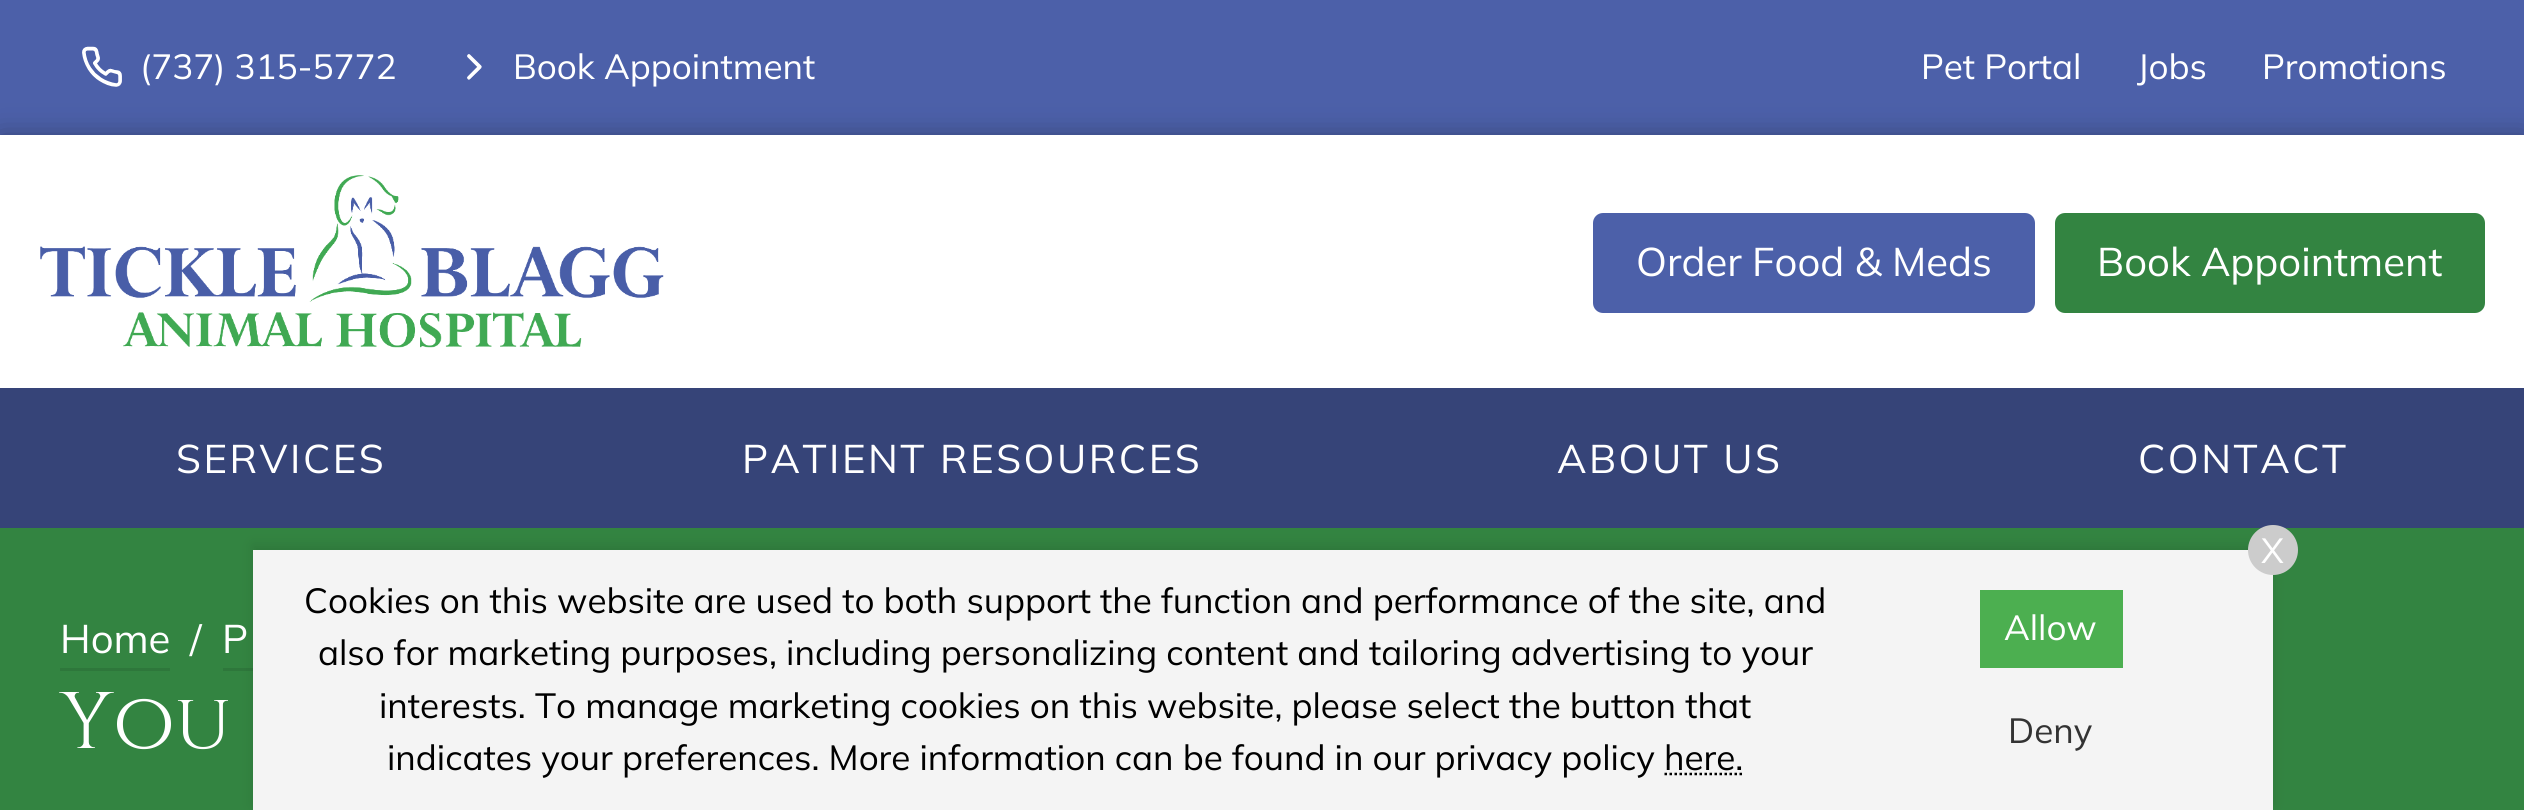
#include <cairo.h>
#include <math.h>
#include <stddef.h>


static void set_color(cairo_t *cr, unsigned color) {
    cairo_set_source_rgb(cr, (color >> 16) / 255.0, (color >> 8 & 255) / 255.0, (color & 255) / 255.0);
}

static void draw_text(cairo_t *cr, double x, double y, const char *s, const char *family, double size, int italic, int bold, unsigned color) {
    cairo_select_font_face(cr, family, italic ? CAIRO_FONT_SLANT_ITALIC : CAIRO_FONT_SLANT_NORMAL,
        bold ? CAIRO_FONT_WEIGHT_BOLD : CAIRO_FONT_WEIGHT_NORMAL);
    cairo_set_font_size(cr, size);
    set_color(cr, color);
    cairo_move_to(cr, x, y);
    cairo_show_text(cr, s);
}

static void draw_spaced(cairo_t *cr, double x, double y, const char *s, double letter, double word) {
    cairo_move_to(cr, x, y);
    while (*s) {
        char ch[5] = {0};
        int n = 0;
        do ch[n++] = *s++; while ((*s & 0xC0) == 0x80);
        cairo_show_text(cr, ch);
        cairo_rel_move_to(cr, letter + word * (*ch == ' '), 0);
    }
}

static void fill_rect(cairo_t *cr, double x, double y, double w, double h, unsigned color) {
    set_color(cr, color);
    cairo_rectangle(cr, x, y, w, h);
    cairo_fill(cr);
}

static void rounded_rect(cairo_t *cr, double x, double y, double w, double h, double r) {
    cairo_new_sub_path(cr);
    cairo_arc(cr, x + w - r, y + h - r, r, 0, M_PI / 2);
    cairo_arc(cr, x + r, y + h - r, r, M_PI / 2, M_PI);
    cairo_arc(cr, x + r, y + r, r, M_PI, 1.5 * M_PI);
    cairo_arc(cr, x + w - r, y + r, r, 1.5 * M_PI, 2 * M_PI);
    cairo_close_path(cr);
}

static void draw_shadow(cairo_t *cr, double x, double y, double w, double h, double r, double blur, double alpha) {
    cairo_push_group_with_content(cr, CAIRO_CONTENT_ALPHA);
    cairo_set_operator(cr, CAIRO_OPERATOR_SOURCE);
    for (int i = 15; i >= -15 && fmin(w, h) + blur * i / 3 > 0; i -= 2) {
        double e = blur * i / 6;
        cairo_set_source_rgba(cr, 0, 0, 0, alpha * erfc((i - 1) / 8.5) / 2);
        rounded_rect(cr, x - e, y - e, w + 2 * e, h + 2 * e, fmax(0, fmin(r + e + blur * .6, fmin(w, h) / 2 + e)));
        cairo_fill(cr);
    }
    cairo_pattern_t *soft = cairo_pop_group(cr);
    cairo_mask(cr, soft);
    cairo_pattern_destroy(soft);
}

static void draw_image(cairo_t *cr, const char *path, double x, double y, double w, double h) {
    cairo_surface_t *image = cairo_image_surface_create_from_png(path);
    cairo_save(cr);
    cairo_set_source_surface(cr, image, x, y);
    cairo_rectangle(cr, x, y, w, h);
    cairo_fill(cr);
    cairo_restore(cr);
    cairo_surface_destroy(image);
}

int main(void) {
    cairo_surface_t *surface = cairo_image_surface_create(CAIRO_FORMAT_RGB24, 2524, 810);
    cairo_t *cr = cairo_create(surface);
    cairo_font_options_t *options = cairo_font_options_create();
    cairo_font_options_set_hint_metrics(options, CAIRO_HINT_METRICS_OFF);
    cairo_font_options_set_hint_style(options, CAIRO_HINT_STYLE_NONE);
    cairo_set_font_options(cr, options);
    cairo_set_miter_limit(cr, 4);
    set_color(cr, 0x4C60A9);
    cairo_paint(cr);
    draw_image(cr, "assets/img1.png", 82, 46, 40, 41);
    draw_text(cr, 140, 79, "(737) 315-5772", "Mulish", 35, 0, 0, 0xFFFFFF);
    draw_image(cr, "assets/img2.png", 467, 54, 15, 26);
    draw_text(cr, 513, 79, "Book Appointment", "Mulish", 35, 0, 0, 0xFFFFFF);
    draw_text(cr, 1921, 79, "Pet Portal", "Mulish", 35, 0, 0, 0xFFFFFF);
    draw_text(cr, 2137, 79, "Jobs", "Mulish", 35, 0, 0, 0xFFFFFF);
    draw_text(cr, 2262, 79, "Promotions", "Mulish", 35, 0, 0, 0xFFFFFF);
    set_color(cr, 0x000000);
    draw_shadow(cr, 0, 140, 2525, 253, 0, 15, 0.4);
    fill_rect(cr, 0, 135, 2524, 253, 0xFFFFFF);
    draw_image(cr, "assets/img3.png", 40, 175, 624, 173);
    set_color(cr, 0x4C60A9);
    rounded_rect(cr, 1593, 213, 442, 100, 10);
    cairo_fill(cr);
    draw_text(cr, 1636, 276, "Order Food & Meds", "Mulish", 40, 0, 0, 0xFFFFFF);
    set_color(cr, 0x338441);
    rounded_rect(cr, 2055, 213, 430, 100, 10);
    cairo_fill(cr);
    draw_text(cr, 2097, 276, "Book Appointment", "Mulish", 40, 0, 0, 0xFFFFFF);
    fill_rect(cr, 0, 388, 2524, 140, 0x364478);
    set_color(cr, 0xFFFFFF);
    draw_spaced(cr, 176, 473, "SERVICES", 2.5, 0);
    draw_spaced(cr, 742, 473, "PATIENT RESOURCES", 2.5, 0);
    draw_spaced(cr, 1557, 473, "ABOUT US", 2.5, 0);
    draw_spaced(cr, 2138, 473, "CONTACT", 2.5, 0);
    fill_rect(cr, 0, 528, 2524, 282, 0x338441);
    fill_rect(cr, 60, 668, 110, 3, 0x2E773B);
    draw_text(cr, 60, 653, "Home", "Mulish", 40, 0, 0, 0xFFFFFF);
    draw_text(cr, 190, 654, "/", "Mulish", 40, 0, 0, 0xFFFFFF);
    fill_rect(cr, 223, 668, 30, 3, 0x2E773B);
    draw_text(cr, 222, 653, "P", "Mulish", 40, 0, 0, 0xFFFFFF);
    draw_text(cr, 60, 748, "You", "Cinzel", 80, 0, 0, 0xFFFFFF);
    set_color(cr, 0x000000);
    draw_shadow(cr, 253, 545, 2020, 260, 0, 6, 0.1);
    fill_rect(cr, 253, 550, 2020, 260, 0xF4F4F4);
    set_color(cr, 0xCCCCCC);
    cairo_arc(cr, 2273, 550, 25, 0, 2 * M_PI);
    cairo_fill(cr);
    draw_text(cr, 2261, 563, "X", "Mulish", 35, 0, 0, 0xFFFFFF);
    draw_text(cr, 304, 613, "Cookies on this website are used to both support the function and performance of the site, and", "Mulish", 35, 0, 0, 0x000000);
    draw_text(cr, 318, 665, "also for marketing purposes, including personalizing content and tailoring advertising to your", "Mulish", 35, 0, 0, 0x000000);
    draw_text(cr, 379, 718, "interests. To manage marketing cookies on this website, please select the button that", "Mulish", 35, 0, 0, 0x000000);
    draw_text(cr, 387, 770, "indicates your preferences. More information can be found in our privacy policy here.", "Mulish", 35, 0, 0, 0x000000);
    cairo_new_path(cr);
    cairo_move_to(cr, 1664.5, 774);
    cairo_line_to(cr, 1743.5, 774);
    cairo_set_line_width(cr, 2.5);
    cairo_set_dash(cr, (double[]){2.5, 2.5}, 2, 0);
    cairo_stroke(cr);
    fill_rect(cr, 1980, 590, 143, 78, 0x4CAF50);
    draw_text(cr, 2004, 640, "Allow", "Mulish", 35, 0, 0, 0xFFFFFF);
    draw_text(cr, 2008, 743, "Deny", "Mulish", 35, 0, 0, 0x333333);
    cairo_surface_write_to_png(surface, "output.png");
    cairo_font_options_destroy(options);
    cairo_destroy(cr);
    cairo_surface_destroy(surface);
    return 0;
}
